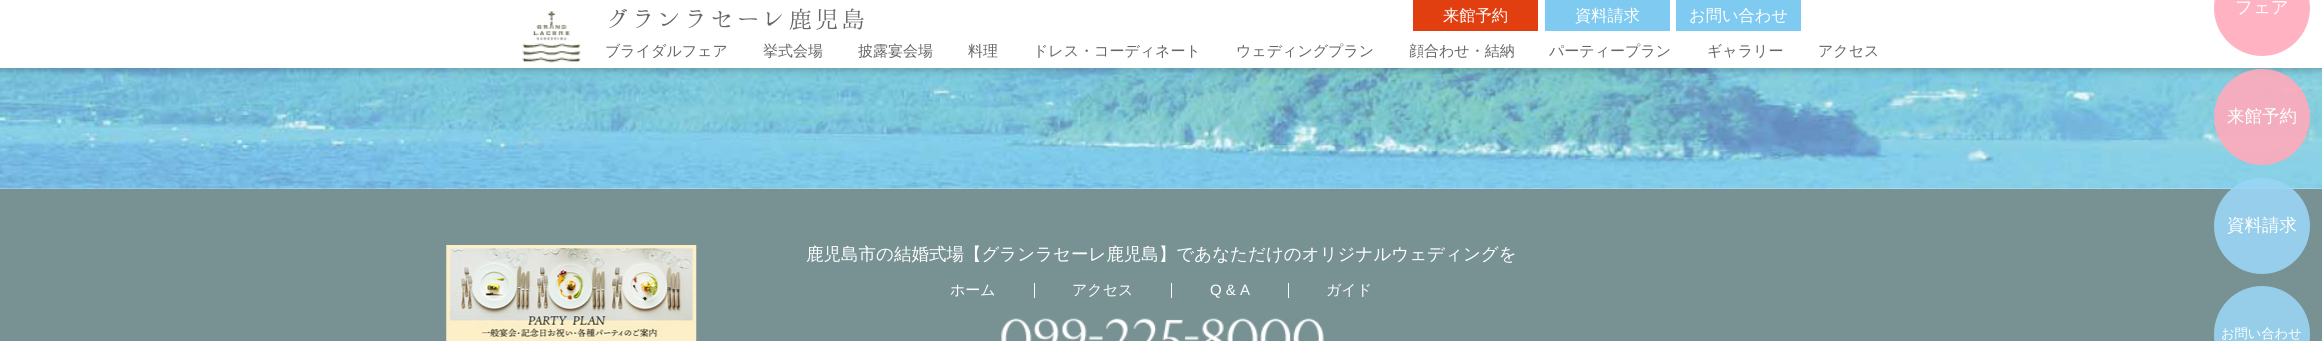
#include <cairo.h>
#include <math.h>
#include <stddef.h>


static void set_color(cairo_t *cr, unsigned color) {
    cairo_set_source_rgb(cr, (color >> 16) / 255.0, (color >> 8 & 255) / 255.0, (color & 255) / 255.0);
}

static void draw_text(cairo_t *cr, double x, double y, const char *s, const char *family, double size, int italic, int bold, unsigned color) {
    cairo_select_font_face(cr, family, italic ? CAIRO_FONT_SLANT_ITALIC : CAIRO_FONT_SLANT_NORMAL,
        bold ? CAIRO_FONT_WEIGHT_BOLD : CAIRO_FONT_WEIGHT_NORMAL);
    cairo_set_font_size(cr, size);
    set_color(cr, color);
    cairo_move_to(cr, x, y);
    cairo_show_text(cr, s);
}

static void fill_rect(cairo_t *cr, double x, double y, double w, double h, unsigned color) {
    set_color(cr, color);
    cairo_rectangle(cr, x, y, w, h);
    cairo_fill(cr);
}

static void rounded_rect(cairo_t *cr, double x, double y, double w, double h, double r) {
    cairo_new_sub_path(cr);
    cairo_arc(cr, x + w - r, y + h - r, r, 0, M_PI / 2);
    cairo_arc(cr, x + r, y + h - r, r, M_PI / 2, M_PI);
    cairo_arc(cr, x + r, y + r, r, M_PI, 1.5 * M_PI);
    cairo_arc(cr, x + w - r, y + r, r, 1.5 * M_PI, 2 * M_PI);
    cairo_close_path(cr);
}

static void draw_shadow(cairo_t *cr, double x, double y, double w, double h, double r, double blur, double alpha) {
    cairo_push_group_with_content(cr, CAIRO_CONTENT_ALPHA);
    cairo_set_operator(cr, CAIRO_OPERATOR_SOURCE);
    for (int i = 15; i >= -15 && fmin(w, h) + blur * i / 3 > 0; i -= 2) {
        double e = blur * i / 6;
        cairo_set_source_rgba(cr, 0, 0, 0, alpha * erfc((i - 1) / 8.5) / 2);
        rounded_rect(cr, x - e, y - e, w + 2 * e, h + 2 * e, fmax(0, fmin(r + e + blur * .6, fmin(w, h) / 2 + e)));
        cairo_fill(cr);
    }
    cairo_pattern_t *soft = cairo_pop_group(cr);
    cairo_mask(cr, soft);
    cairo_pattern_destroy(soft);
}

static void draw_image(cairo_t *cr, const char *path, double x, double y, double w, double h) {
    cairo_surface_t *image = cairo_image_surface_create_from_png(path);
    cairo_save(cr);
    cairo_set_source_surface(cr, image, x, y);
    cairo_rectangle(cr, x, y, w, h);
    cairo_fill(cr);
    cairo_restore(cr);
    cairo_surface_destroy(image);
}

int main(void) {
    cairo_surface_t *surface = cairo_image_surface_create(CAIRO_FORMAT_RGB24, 2322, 341);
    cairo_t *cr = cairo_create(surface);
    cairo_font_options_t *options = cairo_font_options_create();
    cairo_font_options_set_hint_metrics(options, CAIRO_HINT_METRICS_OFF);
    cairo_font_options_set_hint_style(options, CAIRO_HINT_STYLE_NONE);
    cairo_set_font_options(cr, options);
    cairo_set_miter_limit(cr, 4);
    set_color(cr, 0xFFFFFF);
    cairo_paint(cr);
    draw_image(cr, "assets/img2.png", 0, 68, 2322, 121);
    set_color(cr, 0x000000);
    draw_shadow(cr, 0, 3, 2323, 67, 0, 4, 0.25);
    fill_rect(cr, 0, 0, 2322, 68, 0xFFFFFF);
    draw_image(cr, "assets/img1.png", 522, 10, 59, 53);
    draw_text(cr, 605, 28, "グランラセーレ鹿児島", "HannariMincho", 26.25, 0, 0, 0x666666);
    fill_rect(cr, 1413, 0, 125, 31, 0xE13F10);
    draw_text(cr, 1443, 21, "来館予約", "WenQuanYi Zen Hei Medium", 16.25, 0, 0, 0xFFFFFF);
    fill_rect(cr, 1545, 0, 125, 31, 0x7FCAF1);
    draw_text(cr, 1575, 21, "資料請求", "WenQuanYi Zen Hei Medium", 16.25, 0, 0, 0xFFFFFF);
    fill_rect(cr, 1676, 0, 125, 31, 0x7FCAF1);
    draw_text(cr, 1689, 21, "お問い合わせ", "WenQuanYi Zen Hei Medium", 16.25, 0, 0, 0xFFFFFF);
    draw_text(cr, 605, 56, "ブライダルフェア", "WenQuanYi Zen Hei Medium", 15, 0, 0, 0x666666);
    draw_text(cr, 763, 56, "挙式会場", "WenQuanYi Zen Hei Medium", 15, 0, 0, 0x666666);
    draw_text(cr, 858, 56, "披露宴会場", "WenQuanYi Zen Hei Medium", 15, 0, 0, 0x666666);
    draw_text(cr, 968, 56, "料理", "WenQuanYi Zen Hei Medium", 15, 0, 0, 0x666666);
    draw_text(cr, 1033, 56, "ドレス・コーディネート", "WenQuanYi Zen Hei Medium", 15, 0, 0, 0x666666);
    draw_text(cr, 1236, 56, "ウェディングプラン", "WenQuanYi Zen Hei Medium", 15, 0, 0, 0x666666);
    draw_text(cr, 1409, 56, "顔合わせ・結納", "WenQuanYi Zen Hei Medium", 15, 0, 0, 0x666666);
    draw_text(cr, 1549, 56, "パーティープラン", "WenQuanYi Zen Hei Medium", 15, 0, 0, 0x666666);
    draw_text(cr, 1707, 56, "ギャラリー", "WenQuanYi Zen Hei Medium", 15, 0, 0, 0x666666);
    draw_text(cr, 1818, 56, "アクセス", "WenQuanYi Zen Hei Medium", 15, 0, 0, 0x666666);
    set_color(cr, 0xFFB3C2);
    cairo_new_path(cr);
    cairo_arc(cr, 2262, 8, 48, 0, 2 * M_PI);
    cairo_fill(cr);
    draw_text(cr, 2235, 13, "フェア", "WenQuanYi Zen Hei Medium", 17.5, 0, 0, 0xFFFFFF);
    cairo_set_source_rgba(cr, 1, 0.667, 0.733, 0.9);
    cairo_new_path(cr);
    cairo_arc(cr, 2262, 117, 48, 0, 2 * M_PI);
    cairo_fill(cr);
    draw_text(cr, 2227, 122, "来館予約", "WenQuanYi Zen Hei Medium", 17.5, 0, 0, 0xFFFFFF);
    fill_rect(cr, 0, 189, 2322, 152, 0x789294);
    cairo_set_source_rgba(cr, 0.6, 0.835, 0.957, 0.9);
    cairo_new_path(cr);
    cairo_arc(cr, 2262, 226, 48, 0, 2 * M_PI);
    cairo_fill(cr);
    draw_text(cr, 2227, 231, "資料請求", "WenQuanYi Zen Hei Medium", 17.5, 0, 0, 0xFFFFFF);
    set_color(cr, 0x96CEEA);
    rounded_rect(cr, 2214, 286, 96, 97, 48);
    cairo_fill(cr);
    draw_text(cr, 2221, 338, "お問い合わせ", "WenQuanYi Zen Hei Medium", 13.25, 0, 0, 0xFFFFFF);
    draw_image(cr, "assets/img3.png", 446, 245, 251, 96);
    draw_text(cr, 806, 260, "鹿児島市の結婚式場【グランラセーレ鹿児島】であなただけのオリジナルウェディングを", "WenQuanYi Zen Hei Medium", 17.5, 0, 0, 0xFFFFFF);
    draw_text(cr, 950, 295, "ホーム", "WenQuanYi Zen Hei Medium", 15, 0, 0, 0xFFFFFF);
    fill_rect(cr, 1034, 283, 1, 15, 0xFFFFFF);
    draw_text(cr, 1072, 295, "アクセス", "WenQuanYi Zen Hei Medium", 15, 0, 0, 0xFFFFFF);
    fill_rect(cr, 1171, 283, 1, 15, 0xFFFFFF);
    draw_text(cr, 1210, 295, "Q & A", "Liberation Sans", 15, 0, 0, 0xFFFFFF);
    fill_rect(cr, 1288, 283, 1, 15, 0xFFFFFF);
    draw_text(cr, 1326, 295, "ガイド", "WenQuanYi Zen Hei Medium", 15, 0, 0, 0xFFFFFF);
    draw_image(cr, "assets/img4.png", 1001, 318, 323, 23);
    cairo_surface_write_to_png(surface, "output.png");
    cairo_font_options_destroy(options);
    cairo_destroy(cr);
    cairo_surface_destroy(surface);
    return 0;
}
